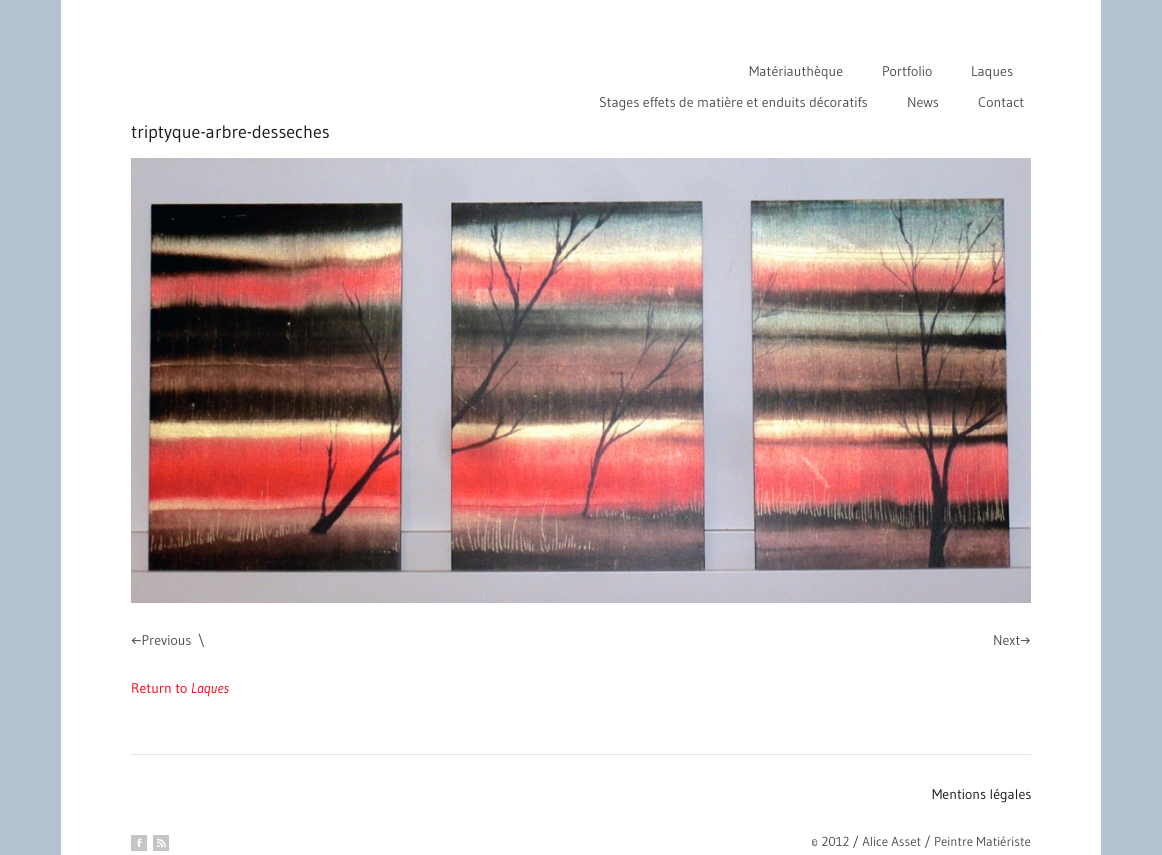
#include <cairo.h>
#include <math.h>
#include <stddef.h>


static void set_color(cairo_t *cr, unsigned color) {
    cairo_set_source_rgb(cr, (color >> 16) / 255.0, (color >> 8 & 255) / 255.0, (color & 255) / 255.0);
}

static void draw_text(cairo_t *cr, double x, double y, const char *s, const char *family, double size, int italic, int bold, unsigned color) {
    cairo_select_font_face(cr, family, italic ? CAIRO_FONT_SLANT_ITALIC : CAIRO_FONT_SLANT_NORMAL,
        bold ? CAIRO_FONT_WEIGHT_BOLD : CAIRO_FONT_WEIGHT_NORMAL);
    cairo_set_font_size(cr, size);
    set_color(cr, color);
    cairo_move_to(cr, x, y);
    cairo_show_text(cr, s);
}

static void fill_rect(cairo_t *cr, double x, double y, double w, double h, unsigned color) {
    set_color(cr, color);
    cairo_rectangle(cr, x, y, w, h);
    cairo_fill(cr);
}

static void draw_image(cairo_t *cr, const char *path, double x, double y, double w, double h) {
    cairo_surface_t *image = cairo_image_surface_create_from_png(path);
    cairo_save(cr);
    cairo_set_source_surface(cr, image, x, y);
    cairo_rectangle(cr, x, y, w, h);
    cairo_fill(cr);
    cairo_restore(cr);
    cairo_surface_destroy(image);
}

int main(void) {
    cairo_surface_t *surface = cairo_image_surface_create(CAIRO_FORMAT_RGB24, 1162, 855);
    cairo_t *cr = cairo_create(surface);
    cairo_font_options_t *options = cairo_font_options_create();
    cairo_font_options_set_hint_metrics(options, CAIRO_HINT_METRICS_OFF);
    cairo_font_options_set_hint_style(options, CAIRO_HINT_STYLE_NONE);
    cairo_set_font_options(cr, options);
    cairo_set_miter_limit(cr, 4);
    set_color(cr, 0xB5C2CF);
    cairo_paint(cr);
    fill_rect(cr, 61, 0, 1040, 855, 0xFFFFFF);
    draw_text(cr, 749, 76, "Matériauthèque", "Gudea", 14, 0, 0, 0x505050);
    draw_text(cr, 882, 76, "Portfolio", "Gudea", 14, 0, 0, 0x505050);
    draw_text(cr, 971, 76, "Laques", "Gudea", 14, 0, 0, 0x505050);
    draw_text(cr, 599, 107, "Stages effets de matière et enduits décoratifs", "Gudea", 14, 0, 0, 0x505050);
    draw_text(cr, 907, 107, "News", "Gudea", 14, 0, 0, 0x505050);
    draw_text(cr, 978, 107, "Contact", "Gudea", 14, 0, 0, 0x505050);
    draw_text(cr, 131, 138, "triptyque-arbre-desseches", "Gudea", 18, 0, 0, 0x191919);
    draw_image(cr, "assets/img1.png", 131, 158, 900, 445);
    draw_text(cr, 131, 645, "←Previous", "Gudea", 14, 0, 0, 0x505050);
    draw_text(cr, 198, 645, "\\", "Gudea", 14, 0, 0, 0x505050);
    draw_text(cr, 993, 645, "Next→", "Gudea", 14, 0, 0, 0x505050);
    draw_text(cr, 131, 693, "Return to", "Gudea", 14, 0, 0, 0xFF0012);
    draw_text(cr, 191, 693, "Laques", "Gudea", 14, 1, 0, 0xFF0012);
    fill_rect(cr, 131, 754, 900, 1, 0xE5E5E5);
    draw_text(cr, 932, 799, "Mentions légales", "Gudea", 14, 0, 0, 0x191919);
    draw_image(cr, "assets/img2.png", 131, 835, 16, 16);
    draw_image(cr, "assets/img3.png", 153, 835, 16, 16);
    draw_text(cr, 811, 846, "© 2012 / Alice Asset / Peintre Matiériste", "Gudea", 13, 0, 0, 0x505050);
    cairo_surface_write_to_png(surface, "output.png");
    cairo_font_options_destroy(options);
    cairo_destroy(cr);
    cairo_surface_destroy(surface);
    return 0;
}
